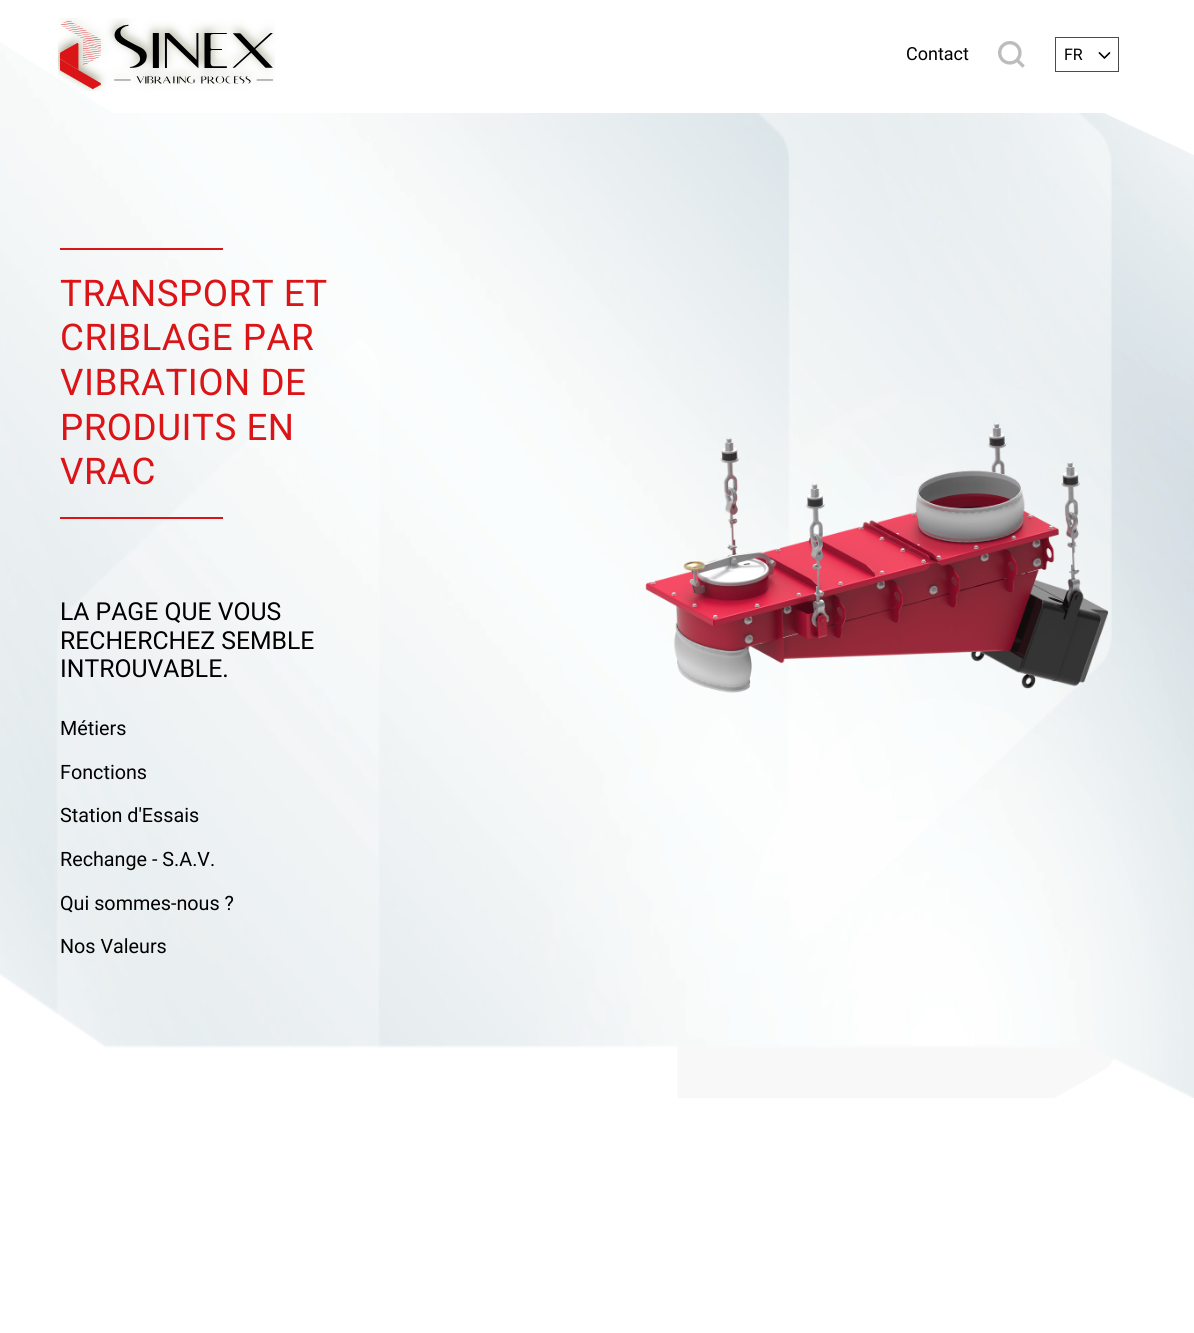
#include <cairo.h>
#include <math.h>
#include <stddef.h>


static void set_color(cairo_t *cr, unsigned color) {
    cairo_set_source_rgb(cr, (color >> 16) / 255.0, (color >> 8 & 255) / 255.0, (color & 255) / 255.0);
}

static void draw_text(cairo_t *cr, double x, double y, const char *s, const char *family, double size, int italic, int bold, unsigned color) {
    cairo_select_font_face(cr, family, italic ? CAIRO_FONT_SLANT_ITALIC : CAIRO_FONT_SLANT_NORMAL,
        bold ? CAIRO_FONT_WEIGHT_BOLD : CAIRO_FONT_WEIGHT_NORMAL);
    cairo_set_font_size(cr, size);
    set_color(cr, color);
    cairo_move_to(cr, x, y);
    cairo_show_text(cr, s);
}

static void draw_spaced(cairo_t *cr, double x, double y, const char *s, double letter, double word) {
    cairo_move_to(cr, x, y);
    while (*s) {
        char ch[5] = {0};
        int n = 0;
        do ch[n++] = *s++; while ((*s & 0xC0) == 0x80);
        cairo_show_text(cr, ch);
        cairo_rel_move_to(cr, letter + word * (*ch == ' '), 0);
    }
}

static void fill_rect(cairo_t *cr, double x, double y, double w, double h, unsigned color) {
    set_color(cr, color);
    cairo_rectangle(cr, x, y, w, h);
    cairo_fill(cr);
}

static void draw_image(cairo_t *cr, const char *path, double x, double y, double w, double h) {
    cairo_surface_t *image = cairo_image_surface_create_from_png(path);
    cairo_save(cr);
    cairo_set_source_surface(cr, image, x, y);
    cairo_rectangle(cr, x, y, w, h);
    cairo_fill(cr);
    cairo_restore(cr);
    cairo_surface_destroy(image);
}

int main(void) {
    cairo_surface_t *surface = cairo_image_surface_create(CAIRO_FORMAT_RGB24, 1194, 1333);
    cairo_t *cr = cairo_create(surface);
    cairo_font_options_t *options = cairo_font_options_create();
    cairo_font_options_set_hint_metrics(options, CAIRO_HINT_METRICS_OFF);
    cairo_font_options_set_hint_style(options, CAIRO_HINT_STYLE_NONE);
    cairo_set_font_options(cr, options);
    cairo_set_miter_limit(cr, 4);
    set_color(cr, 0xFFFFFF);
    cairo_paint(cr);
    draw_image(cr, "assets/img4.png", 677, 1045, 437, 53);
    draw_image(cr, "assets/img5.png", 0, 42, 1194, 1056);
    set_color(cr, 0xFFFFFF);
    cairo_new_path(cr);
    cairo_move_to(cr, 0, 0);
    cairo_line_to(cr, 0, 42);
    cairo_line_to(cr, 113, 113);
    cairo_line_to(cr, 1104, 113);
    cairo_line_to(cr, 1194, 155);
    cairo_line_to(cr, 1194, 0);
    cairo_close_path(cr);
    cairo_fill(cr);
    draw_image(cr, "assets/img1.png", 58, 18, 217, 73);
    draw_text(cr, 906, 60, "Contact", "Roboto", 18, 0, 0, 0x000000);
    draw_image(cr, "assets/img2.png", 998, 41, 27, 27);
    cairo_rectangle(cr, 1055.5, 37.5, 63, 34);
    set_color(cr, 0x4B4B4B);
    cairo_set_line_width(cr, 1);
    cairo_stroke(cr);
    draw_text(cr, 1064, 60, "FR", "Roboto", 16, 0, 0, 0x000000);
    draw_image(cr, "assets/img3.png", 1098, 52, 13, 7);
    fill_rect(cr, 60, 248, 163, 2, 0xDB1418);
    cairo_set_font_size(cr, 36.75);
    draw_spaced(cr, 60, 306, "TRANSPORT ET", 0.5, 0);
    draw_spaced(cr, 60, 350, "CRIBLAGE PAR", 0.5, 0);
    draw_spaced(cr, 60, 395, "VIBRATION DE", 0.5, 0);
    draw_spaced(cr, 60, 440, "PRODUITS EN", 0.5, 0);
    draw_spaced(cr, 60, 484, "VRAC", 0.5, 0);
    fill_rect(cr, 60, 517, 163, 2, 0xDB1418);
    draw_text(cr, 60, 620, "LA PAGE QUE VOUS", "Roboto", 24.75, 0, 0, 0x000000);
    draw_text(cr, 60, 649, "RECHERCHEZ SEMBLE", "Roboto", 24.75, 0, 0, 0x000000);
    draw_text(cr, 60, 677, "INTROUVABLE.", "Roboto", 24.75, 0, 0, 0x000000);
    draw_text(cr, 60, 735, "Métiers", "Roboto", 19.75, 0, 0, 0x000000);
    draw_text(cr, 60, 779, "Fonctions", "Roboto", 19.75, 0, 0, 0x000000);
    draw_text(cr, 60, 822, "Station d'Essais", "Roboto", 19.75, 0, 0, 0x000000);
    draw_text(cr, 60, 866, "Rechange - S.A.V.", "Roboto", 19.75, 0, 0, 0x000000);
    draw_text(cr, 60, 910, "Qui sommes-nous ?", "Roboto", 19.75, 0, 0, 0x000000);
    draw_text(cr, 60, 953, "Nos Valeurs", "Roboto", 19.75, 0, 0, 0x000000);
    draw_image(cr, "assets/img6.png", 645, 423, 464, 270);
    cairo_surface_write_to_png(surface, "output.png");
    cairo_font_options_destroy(options);
    cairo_destroy(cr);
    cairo_surface_destroy(surface);
    return 0;
}
